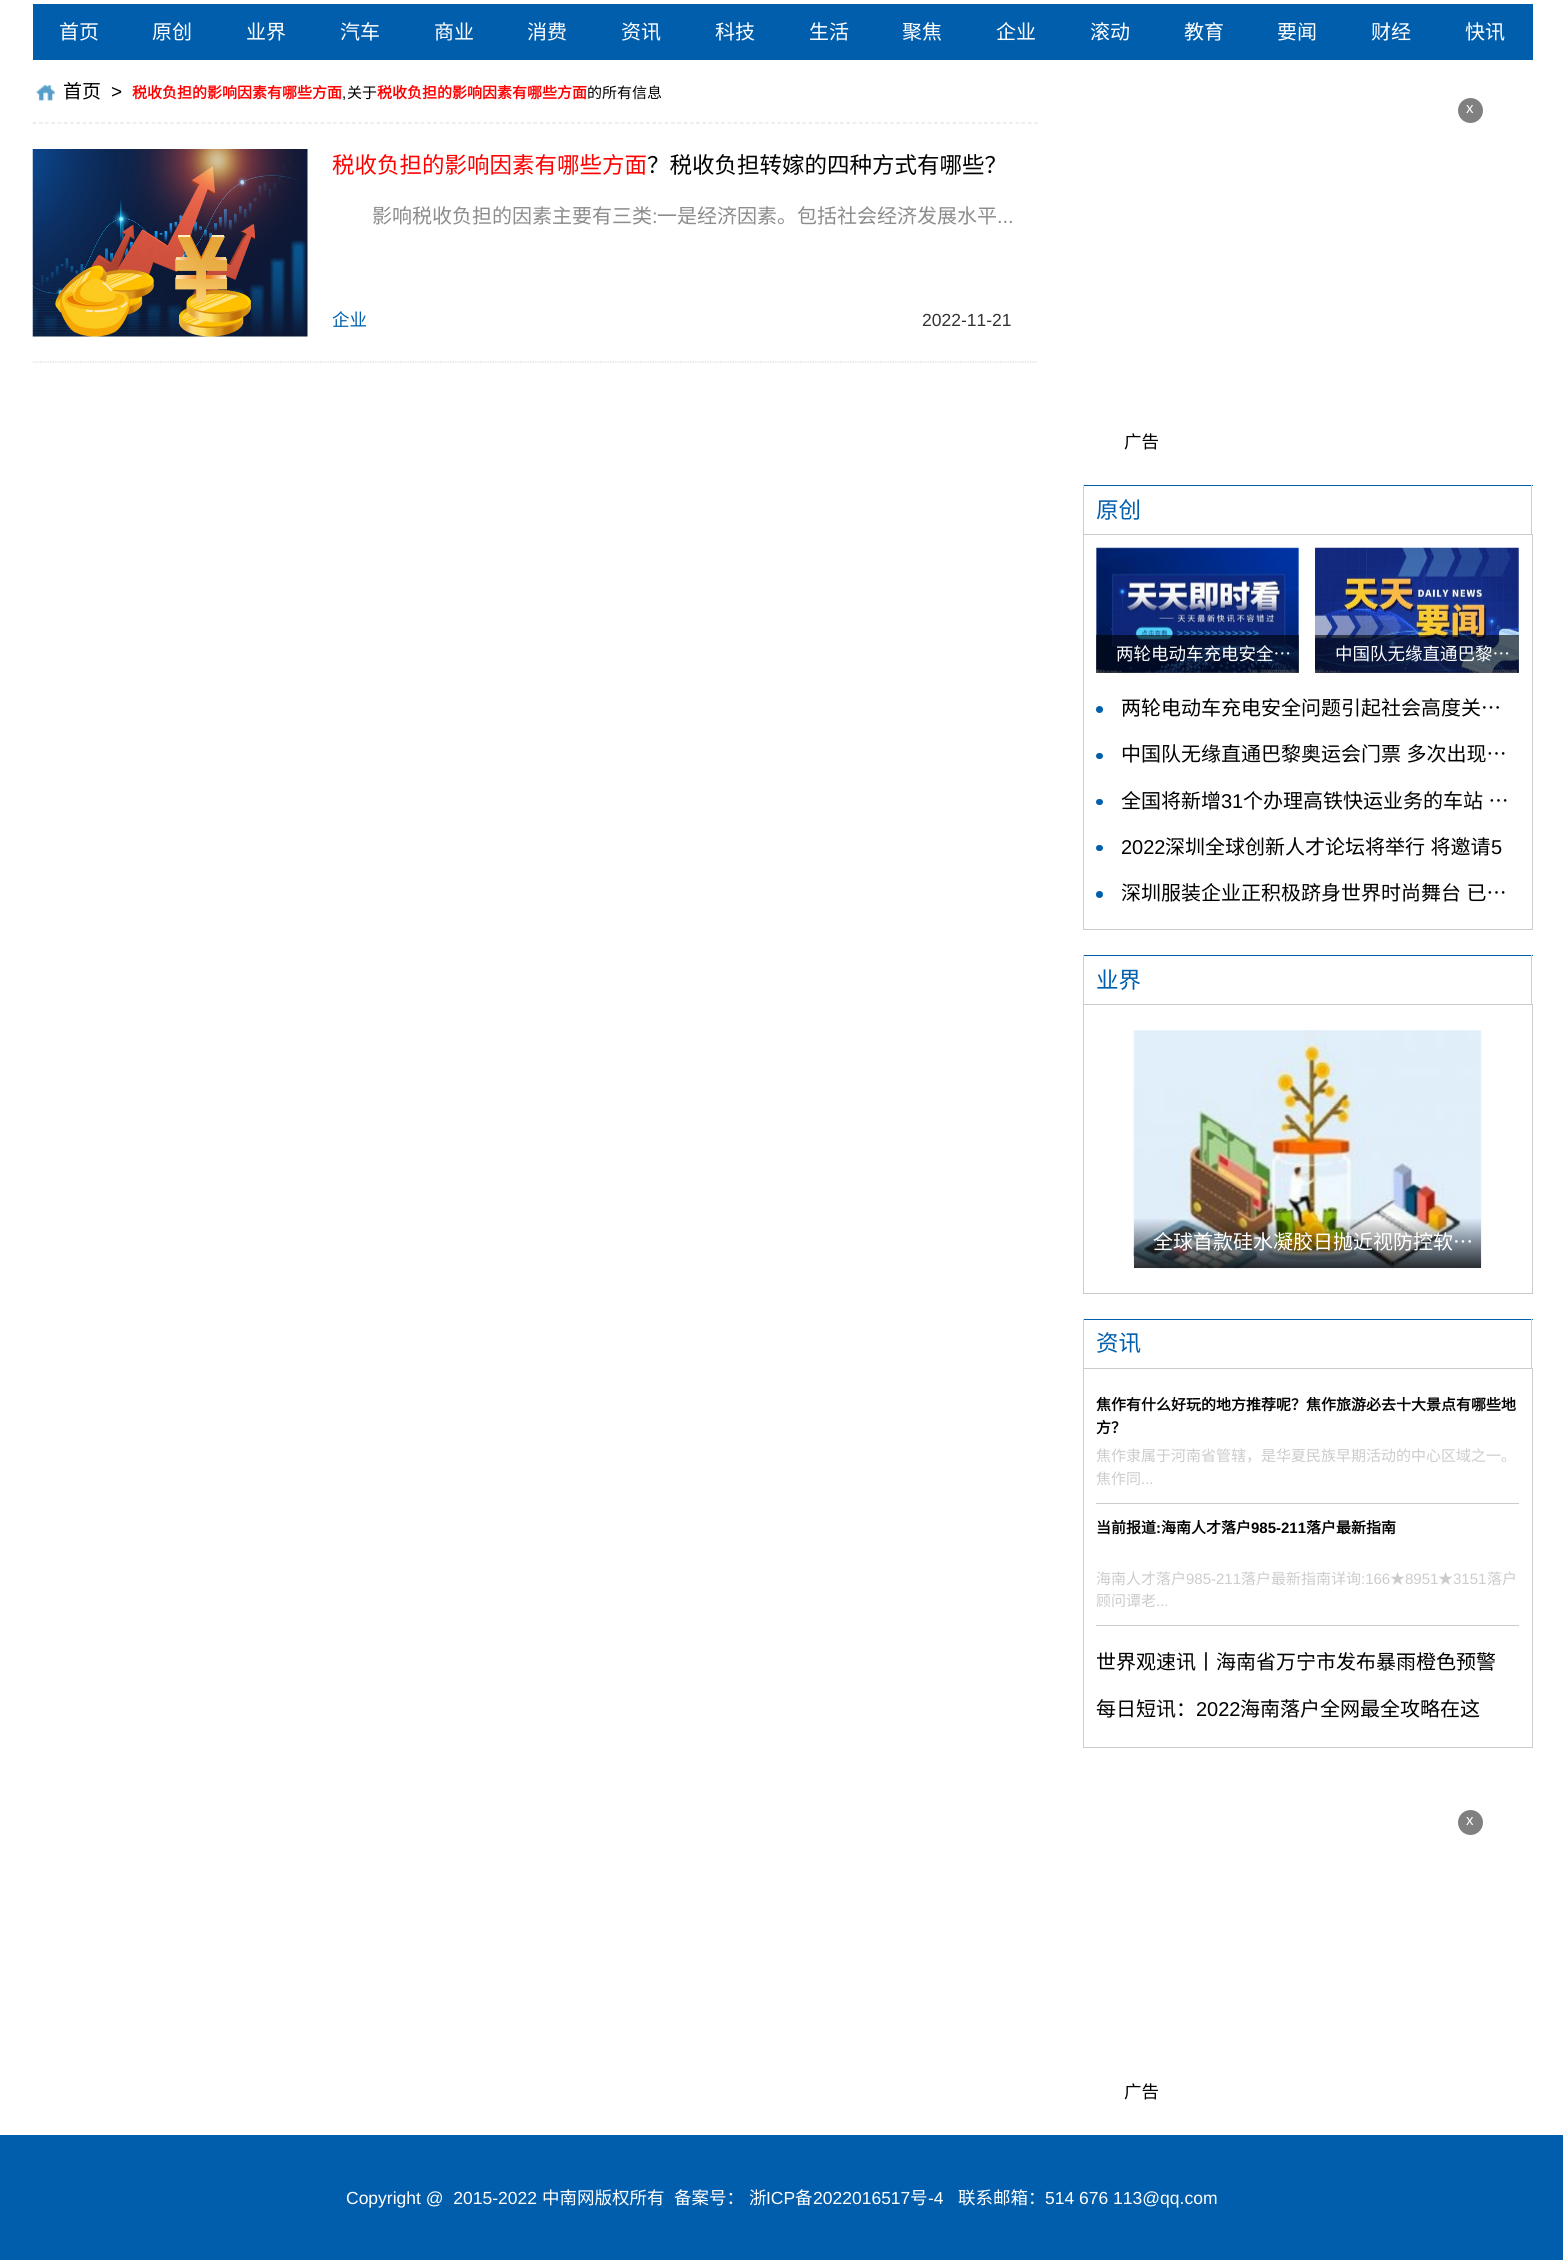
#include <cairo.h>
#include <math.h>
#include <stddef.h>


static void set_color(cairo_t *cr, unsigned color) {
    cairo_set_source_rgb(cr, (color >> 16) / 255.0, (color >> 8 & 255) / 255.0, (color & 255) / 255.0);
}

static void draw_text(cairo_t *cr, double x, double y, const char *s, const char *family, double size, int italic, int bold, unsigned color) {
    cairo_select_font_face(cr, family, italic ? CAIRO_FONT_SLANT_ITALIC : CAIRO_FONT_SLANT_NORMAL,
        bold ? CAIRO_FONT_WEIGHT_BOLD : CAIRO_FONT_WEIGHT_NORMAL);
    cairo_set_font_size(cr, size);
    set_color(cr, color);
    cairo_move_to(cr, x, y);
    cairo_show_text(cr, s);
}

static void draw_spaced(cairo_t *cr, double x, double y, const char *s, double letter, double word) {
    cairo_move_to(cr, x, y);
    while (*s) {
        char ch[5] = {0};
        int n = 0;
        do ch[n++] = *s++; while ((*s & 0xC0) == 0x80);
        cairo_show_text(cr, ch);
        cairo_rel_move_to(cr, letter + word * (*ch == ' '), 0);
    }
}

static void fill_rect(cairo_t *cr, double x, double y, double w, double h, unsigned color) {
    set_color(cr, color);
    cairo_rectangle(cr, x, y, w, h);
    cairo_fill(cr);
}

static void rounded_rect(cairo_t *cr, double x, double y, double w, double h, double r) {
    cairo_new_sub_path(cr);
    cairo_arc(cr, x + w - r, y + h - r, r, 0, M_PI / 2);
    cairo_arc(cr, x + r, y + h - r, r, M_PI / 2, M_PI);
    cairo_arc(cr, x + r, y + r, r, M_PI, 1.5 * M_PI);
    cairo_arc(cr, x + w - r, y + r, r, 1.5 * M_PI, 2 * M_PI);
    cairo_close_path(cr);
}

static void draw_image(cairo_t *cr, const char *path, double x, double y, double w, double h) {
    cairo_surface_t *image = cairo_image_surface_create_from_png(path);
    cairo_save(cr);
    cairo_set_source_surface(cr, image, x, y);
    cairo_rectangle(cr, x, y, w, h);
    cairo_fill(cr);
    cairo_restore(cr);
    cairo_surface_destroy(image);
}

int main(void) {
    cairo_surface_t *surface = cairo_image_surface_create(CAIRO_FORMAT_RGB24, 1563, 2260);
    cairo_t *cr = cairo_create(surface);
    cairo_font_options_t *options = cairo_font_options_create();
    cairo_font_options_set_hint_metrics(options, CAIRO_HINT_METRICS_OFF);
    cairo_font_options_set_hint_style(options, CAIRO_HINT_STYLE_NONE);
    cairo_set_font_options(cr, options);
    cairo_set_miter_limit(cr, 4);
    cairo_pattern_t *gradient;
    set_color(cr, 0xFFFFFF);
    cairo_paint(cr);
    fill_rect(cr, 33, 4, 1500, 56, 0x005EAD);
    draw_text(cr, 59, 39, "首页", "Noto Sans CJK SC", 20, 0, 0, 0xFFFFFF);
    draw_text(cr, 152, 39, "原创", "Noto Sans CJK SC", 20, 0, 0, 0xFFFFFF);
    draw_text(cr, 246, 39, "业界", "Noto Sans CJK SC", 20, 0, 0, 0xFFFFFF);
    draw_text(cr, 340, 39, "汽车", "Noto Sans CJK SC", 20, 0, 0, 0xFFFFFF);
    draw_text(cr, 434, 39, "商业", "Noto Sans CJK SC", 20, 0, 0, 0xFFFFFF);
    draw_text(cr, 527, 39, "消费", "Noto Sans CJK SC", 20, 0, 0, 0xFFFFFF);
    draw_text(cr, 621, 39, "资讯", "Noto Sans CJK SC", 20, 0, 0, 0xFFFFFF);
    draw_text(cr, 715, 39, "科技", "Noto Sans CJK SC", 20, 0, 0, 0xFFFFFF);
    draw_text(cr, 809, 39, "生活", "Noto Sans CJK SC", 20, 0, 0, 0xFFFFFF);
    draw_text(cr, 902, 39, "聚焦", "Noto Sans CJK SC", 20, 0, 0, 0xFFFFFF);
    draw_text(cr, 996, 39, "企业", "Noto Sans CJK SC", 20, 0, 0, 0xFFFFFF);
    draw_text(cr, 1090, 39, "滚动", "Noto Sans CJK SC", 20, 0, 0, 0xFFFFFF);
    draw_text(cr, 1184, 39, "教育", "Noto Sans CJK SC", 20, 0, 0, 0xFFFFFF);
    draw_text(cr, 1277, 39, "要闻", "Noto Sans CJK SC", 20, 0, 0, 0xFFFFFF);
    draw_text(cr, 1371, 39, "财经", "Noto Sans CJK SC", 20, 0, 0, 0xFFFFFF);
    draw_text(cr, 1465, 39, "快讯", "Noto Sans CJK SC", 20, 0, 0, 0xFFFFFF);
    draw_image(cr, "assets/img1.png", 36, 85, 19, 16);
    cairo_new_path(cr);
    cairo_move_to(cr, 32.5, 123);
    cairo_line_to(cr, 1037.5, 123);
    set_color(cr, 0xE3E3E3);
    cairo_set_line_width(cr, 1.2);
    cairo_set_dash(cr, (double[]){3.75, 2.51}, 2, 0);
    cairo_stroke(cr);
    draw_text(cr, 63, 98, "首页", "Noto Sans CJK SC", 19, 0, 0, 0x000000);
    draw_text(cr, 111, 98, ">", "Liberation Sans", 19, 0, 0, 0x000000);
    draw_text(cr, 132, 98, "税收负担的影响因素有哪些方面", "Noto Sans CJK SC", 15, 0, 1, 0xFF0000);
    draw_text(cr, 347, 98, "关于", "Noto Sans CJK SC", 15, 0, 0, 0x000000);
    draw_text(cr, 377, 98, "税收负担的影响因素有哪些方面", "Noto Sans CJK SC", 15, 0, 1, 0xFF0000);
    draw_text(cr, 587, 98, "的所有信息", "Noto Sans CJK SC", 15, 0, 0, 0x000000);
    draw_text(cr, 342, 98, ",", "Liberation Sans", 15, 0, 0, 0x000000);
    cairo_new_path(cr);
    cairo_move_to(cr, 32.5, 362);
    cairo_line_to(cr, 1037.5, 362);
    set_color(cr, 0xD9D9D9);
    cairo_set_dash(cr, (double[]){1.25, 1.25}, 2, 0);
    cairo_stroke(cr);
    draw_image(cr, "assets/img2.png", 32, 149, 276, 188);
    draw_text(cr, 332, 173, "税收负担的影响因素有哪些方面", "Noto Sans CJK SC", 22.5, 0, 0, 0xFF0000);
    draw_text(cr, 647, 173, "？税收负担转嫁的四种方式有哪些？", "Noto Sans CJK SC", 22.5, 0, 0, 0x000000);
    draw_text(cr, 372, 223, "影响税收负担的因素主要有三类", "Noto Sans CJK SC", 20, 0, 0, 0x8C8C8C);
    draw_text(cr, 652, 223, ":", "Liberation Sans", 20, 0, 0, 0x8C8C8C);
    draw_text(cr, 657, 223, "一是经济因素。包括社会经济发展水平", "Noto Sans CJK SC", 20, 0, 0, 0x8C8C8C);
    draw_text(cr, 997, 223, "...", "Liberation Sans", 20, 0, 0, 0x8C8C8C);
    draw_text(cr, 332, 326, "企业", "Noto Sans CJK SC", 17.5, 0, 0, 0x005EAD);
    draw_text(cr, 922, 326, "2022-11-21", "Liberation Sans", 17.5, 0, 0, 0x333333);
    set_color(cr, 0x808080);
    cairo_new_path(cr);
    cairo_arc(cr, 1470.5, 110.5, 12.5, 0, 2 * M_PI);
    cairo_fill(cr);
    draw_text(cr, 1466, 113, "x", "Liberation Sans", 15, 0, 0, 0xFFFFFF);
    draw_text(cr, 1124, 448, "广告", "Noto Sans CJK SC", 17.5, 0, 0, 0x000000);
    fill_rect(cr, 1083, 485, 450, 1, 0x005EAD);
    fill_rect(cr, 1531, 485, 1, 49, 0xCCCCCC);
    fill_rect(cr, 1083, 485, 1, 49, 0xCCCCCC);
    draw_text(cr, 1096, 518, "原创", "Noto Sans CJK SC", 22.5, 0, 0, 0x005EAD);
    cairo_rectangle(cr, 1083.5, 534.5, 449, 395);
    set_color(cr, 0xCCCCCC);
    cairo_set_line_width(cr, 1);
    cairo_set_dash(cr, NULL, 0, 0);
    cairo_stroke(cr);
    draw_image(cr, "assets/img3.png", 1096, 547, 203, 126);
    cairo_set_source_rgba(cr, 0, 0, 0, 0.6);
    cairo_rectangle(cr, 1096, 635, 203, 38);
    cairo_fill(cr);
    cairo_set_font_size(cr, 17.5);
    set_color(cr, 0xFFFFFF);
    draw_spaced(cr, 1116, 660, "两轮电动车充电安全…", 0, 1);
    draw_image(cr, "assets/img4.png", 1315, 547, 204, 126);
    cairo_set_source_rgba(cr, 0, 0, 0, 0.6);
    cairo_rectangle(cr, 1315, 635, 204, 38);
    cairo_fill(cr);
    set_color(cr, 0xFFFFFF);
    draw_spaced(cr, 1335, 660, "中国队无缘直通巴黎…", 0, 1);
    set_color(cr, 0x005EAD);
    cairo_new_path(cr);
    cairo_arc(cr, 1099.5, 709.5, 3.5, 0, 2 * M_PI);
    cairo_fill(cr);
    cairo_set_font_size(cr, 20);
    set_color(cr, 0x000000);
    draw_spaced(cr, 1121, 715, "两轮电动车充电安全问题引起社会高度关…", 0, 1);
    set_color(cr, 0x005EAD);
    rounded_rect(cr, 1096, 753, 7, 6, 3);
    cairo_fill(cr);
    set_color(cr, 0x000000);
    draw_spaced(cr, 1121, 761, "中国队无缘直通巴黎奥运会门票 多次出现…", 0, 1);
    set_color(cr, 0x005EAD);
    rounded_rect(cr, 1096, 799, 7, 6, 3);
    cairo_fill(cr);
    draw_text(cr, 1121, 808, "全国将新增", "Noto Sans CJK SC", 20, 0, 0, 0x000000);
    draw_text(cr, 1221, 808, "31", "Liberation Sans", 20, 0, 0, 0x000000);
    cairo_select_font_face(cr, "Noto Sans CJK SC", CAIRO_FONT_SLANT_NORMAL, CAIRO_FONT_WEIGHT_NORMAL);
    draw_spaced(cr, 1243, 808, "个办理高铁快运业务的车站 …", 0, 1);
    set_color(cr, 0x005EAD);
    rounded_rect(cr, 1096, 845, 7, 6, 3);
    cairo_fill(cr);
    draw_text(cr, 1121, 854, "2022", "Liberation Sans", 20, 0, 0, 0x000000);
    cairo_select_font_face(cr, "Noto Sans CJK SC", CAIRO_FONT_SLANT_NORMAL, CAIRO_FONT_WEIGHT_NORMAL);
    draw_spaced(cr, 1165, 854, "深圳全球创新人才论坛将举行 将邀请", 0, 1);
    draw_text(cr, 1491, 854, "5", "Liberation Sans", 20, 0, 0, 0x000000);
    set_color(cr, 0x005EAD);
    cairo_new_path(cr);
    cairo_arc(cr, 1099.5, 894.5, 3.5, 0, 2 * M_PI);
    cairo_fill(cr);
    cairo_select_font_face(cr, "Noto Sans CJK SC", CAIRO_FONT_SLANT_NORMAL, CAIRO_FONT_WEIGHT_NORMAL);
    set_color(cr, 0x000000);
    draw_spaced(cr, 1121, 900, "深圳服装企业正积极跻身世界时尚舞台 已…", 0, 1);
    fill_rect(cr, 1083, 955, 450, 1, 0x005EAD);
    fill_rect(cr, 1531, 955, 1, 49, 0xCCCCCC);
    fill_rect(cr, 1083, 955, 1, 49, 0xCCCCCC);
    draw_text(cr, 1096, 988, "业界", "Noto Sans CJK SC", 22.5, 0, 0, 0x005EAD);
    cairo_rectangle(cr, 1083.5, 1004.5, 449, 289);
    set_color(cr, 0xCCCCCC);
    cairo_stroke(cr);
    draw_image(cr, "assets/img5.png", 1133, 1030, 349, 239);
    gradient = cairo_pattern_create_linear(1308, 1218, 1308, 1268);
    cairo_pattern_add_color_stop_rgba(gradient, 0, 0, 0, 0, 0);
    cairo_pattern_add_color_stop_rgba(gradient, 1, 0, 0, 0, 0.8);
    cairo_set_source(cr, gradient);
    cairo_pattern_destroy(gradient);
    cairo_rectangle(cr, 1134, 1219, 347, 49);
    cairo_fill(cr);
    cairo_set_font_size(cr, 20);
    set_color(cr, 0xFFFFFF);
    draw_spaced(cr, 1153, 1249, "全球首款硅水凝胶日抛近视防控软…", 0, 1);
    fill_rect(cr, 1083, 1319, 450, 1, 0x005EAD);
    fill_rect(cr, 1531, 1319, 1, 49, 0xCCCCCC);
    fill_rect(cr, 1083, 1319, 1, 49, 0xCCCCCC);
    draw_text(cr, 1096, 1351, "资讯", "Noto Sans CJK SC", 22.5, 0, 0, 0x005EAD);
    cairo_rectangle(cr, 1083.5, 1368.5, 449, 379);
    set_color(cr, 0xCCCCCC);
    cairo_stroke(cr);
    fill_rect(cr, 1096, 1503, 423, 1, 0xCCCCCC);
    draw_text(cr, 1096, 1410, "焦作有什么好玩的地方推荐呢？焦作旅游必去十大景点有哪些地", "Noto Sans CJK SC", 15, 0, 1, 0x000000);
    draw_text(cr, 1096, 1433, "方？", "Noto Sans CJK SC", 15, 0, 1, 0x000000);
    draw_text(cr, 1096, 1461, "焦作隶属于河南省管辖，是华夏民族早期活动的中心区域之一。", "Noto Sans CJK SC", 15, 0, 0, 0xCCCCCC);
    draw_text(cr, 1096, 1484, "焦作同", "Noto Sans CJK SC", 15, 0, 0, 0xCCCCCC);
    draw_text(cr, 1141, 1484, "...", "Liberation Sans", 15, 0, 0, 0xCCCCCC);
    fill_rect(cr, 1096, 1625, 423, 1, 0xCCCCCC);
    draw_text(cr, 1096, 1533, "当前报道", "Noto Sans CJK SC", 15, 0, 1, 0x000000);
    draw_text(cr, 1156, 1533, ":", "Liberation Sans", 15, 0, 1, 0x000000);
    draw_text(cr, 1161, 1533, "海南人才落户", "Noto Sans CJK SC", 15, 0, 1, 0x000000);
    draw_text(cr, 1251, 1533, "985-211", "Liberation Sans", 15, 0, 1, 0x000000);
    draw_text(cr, 1306, 1533, "落户最新指南", "Noto Sans CJK SC", 15, 0, 1, 0x000000);
    draw_text(cr, 1096, 1584, "海南人才落户", "Noto Sans CJK SC", 15, 0, 0, 0xCCCCCC);
    draw_text(cr, 1186, 1584, "985-211", "Liberation Sans", 15, 0, 0, 0xCCCCCC);
    draw_text(cr, 1241, 1584, "落户最新指南详询", "Noto Sans CJK SC", 15, 0, 0, 0xCCCCCC);
    draw_text(cr, 1361, 1584, ":166", "Liberation Sans", 15, 0, 0, 0xCCCCCC);
    draw_text(cr, 1390, 1584, "★", "Noto Sans CJK SC", 15, 0, 0, 0xCCCCCC);
    draw_text(cr, 1405, 1584, "8951", "Liberation Sans", 15, 0, 0, 0xCCCCCC);
    draw_text(cr, 1438, 1584, "★", "Noto Sans CJK SC", 15, 0, 0, 0xCCCCCC);
    draw_text(cr, 1453, 1584, "3151", "Liberation Sans", 15, 0, 0, 0xCCCCCC);
    draw_text(cr, 1487, 1584, "落户", "Noto Sans CJK SC", 15, 0, 0, 0xCCCCCC);
    draw_text(cr, 1096, 1606, "顾问谭老", "Noto Sans CJK SC", 15, 0, 0, 0xCCCCCC);
    draw_text(cr, 1156, 1606, "...", "Liberation Sans", 15, 0, 0, 0xCCCCCC);
    draw_text(cr, 1096, 1669, "世界观速讯丨海南省万宁市发布暴雨橙色预警", "Noto Sans CJK SC", 20, 0, 0, 0x000000);
    draw_text(cr, 1096, 1716, "每日短讯：", "Noto Sans CJK SC", 20, 0, 0, 0x000000);
    draw_text(cr, 1196, 1716, "2022", "Liberation Sans", 20, 0, 0, 0x000000);
    draw_text(cr, 1240, 1716, "海南落户全网最全攻略在这", "Noto Sans CJK SC", 20, 0, 0, 0x000000);
    set_color(cr, 0x808080);
    cairo_new_path(cr);
    cairo_arc(cr, 1470.5, 1822.5, 12.5, 0, 2 * M_PI);
    cairo_fill(cr);
    draw_text(cr, 1466, 1825, "x", "Liberation Sans", 15, 0, 0, 0xFFFFFF);
    draw_text(cr, 1124, 2098, "广告", "Noto Sans CJK SC", 17.5, 0, 0, 0x000000);
    fill_rect(cr, 0, 2135, 1563, 125, 0x005EAD);
    draw_text(cr, 346, 2204, "Copyright @  2015-2022", "Liberation Sans", 17.5, 0, 0, 0xFFFFFF);
    draw_text(cr, 542, 2204, "中南网版权所有", "Noto Sans CJK SC", 17.5, 0, 0, 0xFFFFFF);
    draw_text(cr, 674, 2204, "备案号：", "Noto Sans CJK SC", 17.5, 0, 0, 0xFFFFFF);
    draw_text(cr, 749, 2204, "浙", "Noto Sans CJK SC", 17.5, 0, 0, 0xFFFFFF);
    draw_text(cr, 766, 2204, "ICP", "Liberation Sans", 17.5, 0, 0, 0xFFFFFF);
    draw_text(cr, 795, 2204, "备", "Noto Sans CJK SC", 17.5, 0, 0, 0xFFFFFF);
    draw_text(cr, 813, 2204, "2022016517", "Liberation Sans", 17.5, 0, 0, 0xFFFFFF);
    draw_text(cr, 910, 2204, "号", "Noto Sans CJK SC", 17.5, 0, 0, 0xFFFFFF);
    draw_text(cr, 928, 2204, "-4", "Liberation Sans", 17.5, 0, 0, 0xFFFFFF);
    draw_text(cr, 958, 2204, "联系邮箱：", "Noto Sans CJK SC", 17.5, 0, 0, 0xFFFFFF);
    draw_text(cr, 1045, 2204, "514 676 113@qq.com", "Liberation Sans", 17.5, 0, 0, 0xFFFFFF);
    cairo_surface_write_to_png(surface, "output.png");
    cairo_font_options_destroy(options);
    cairo_destroy(cr);
    cairo_surface_destroy(surface);
    return 0;
}
